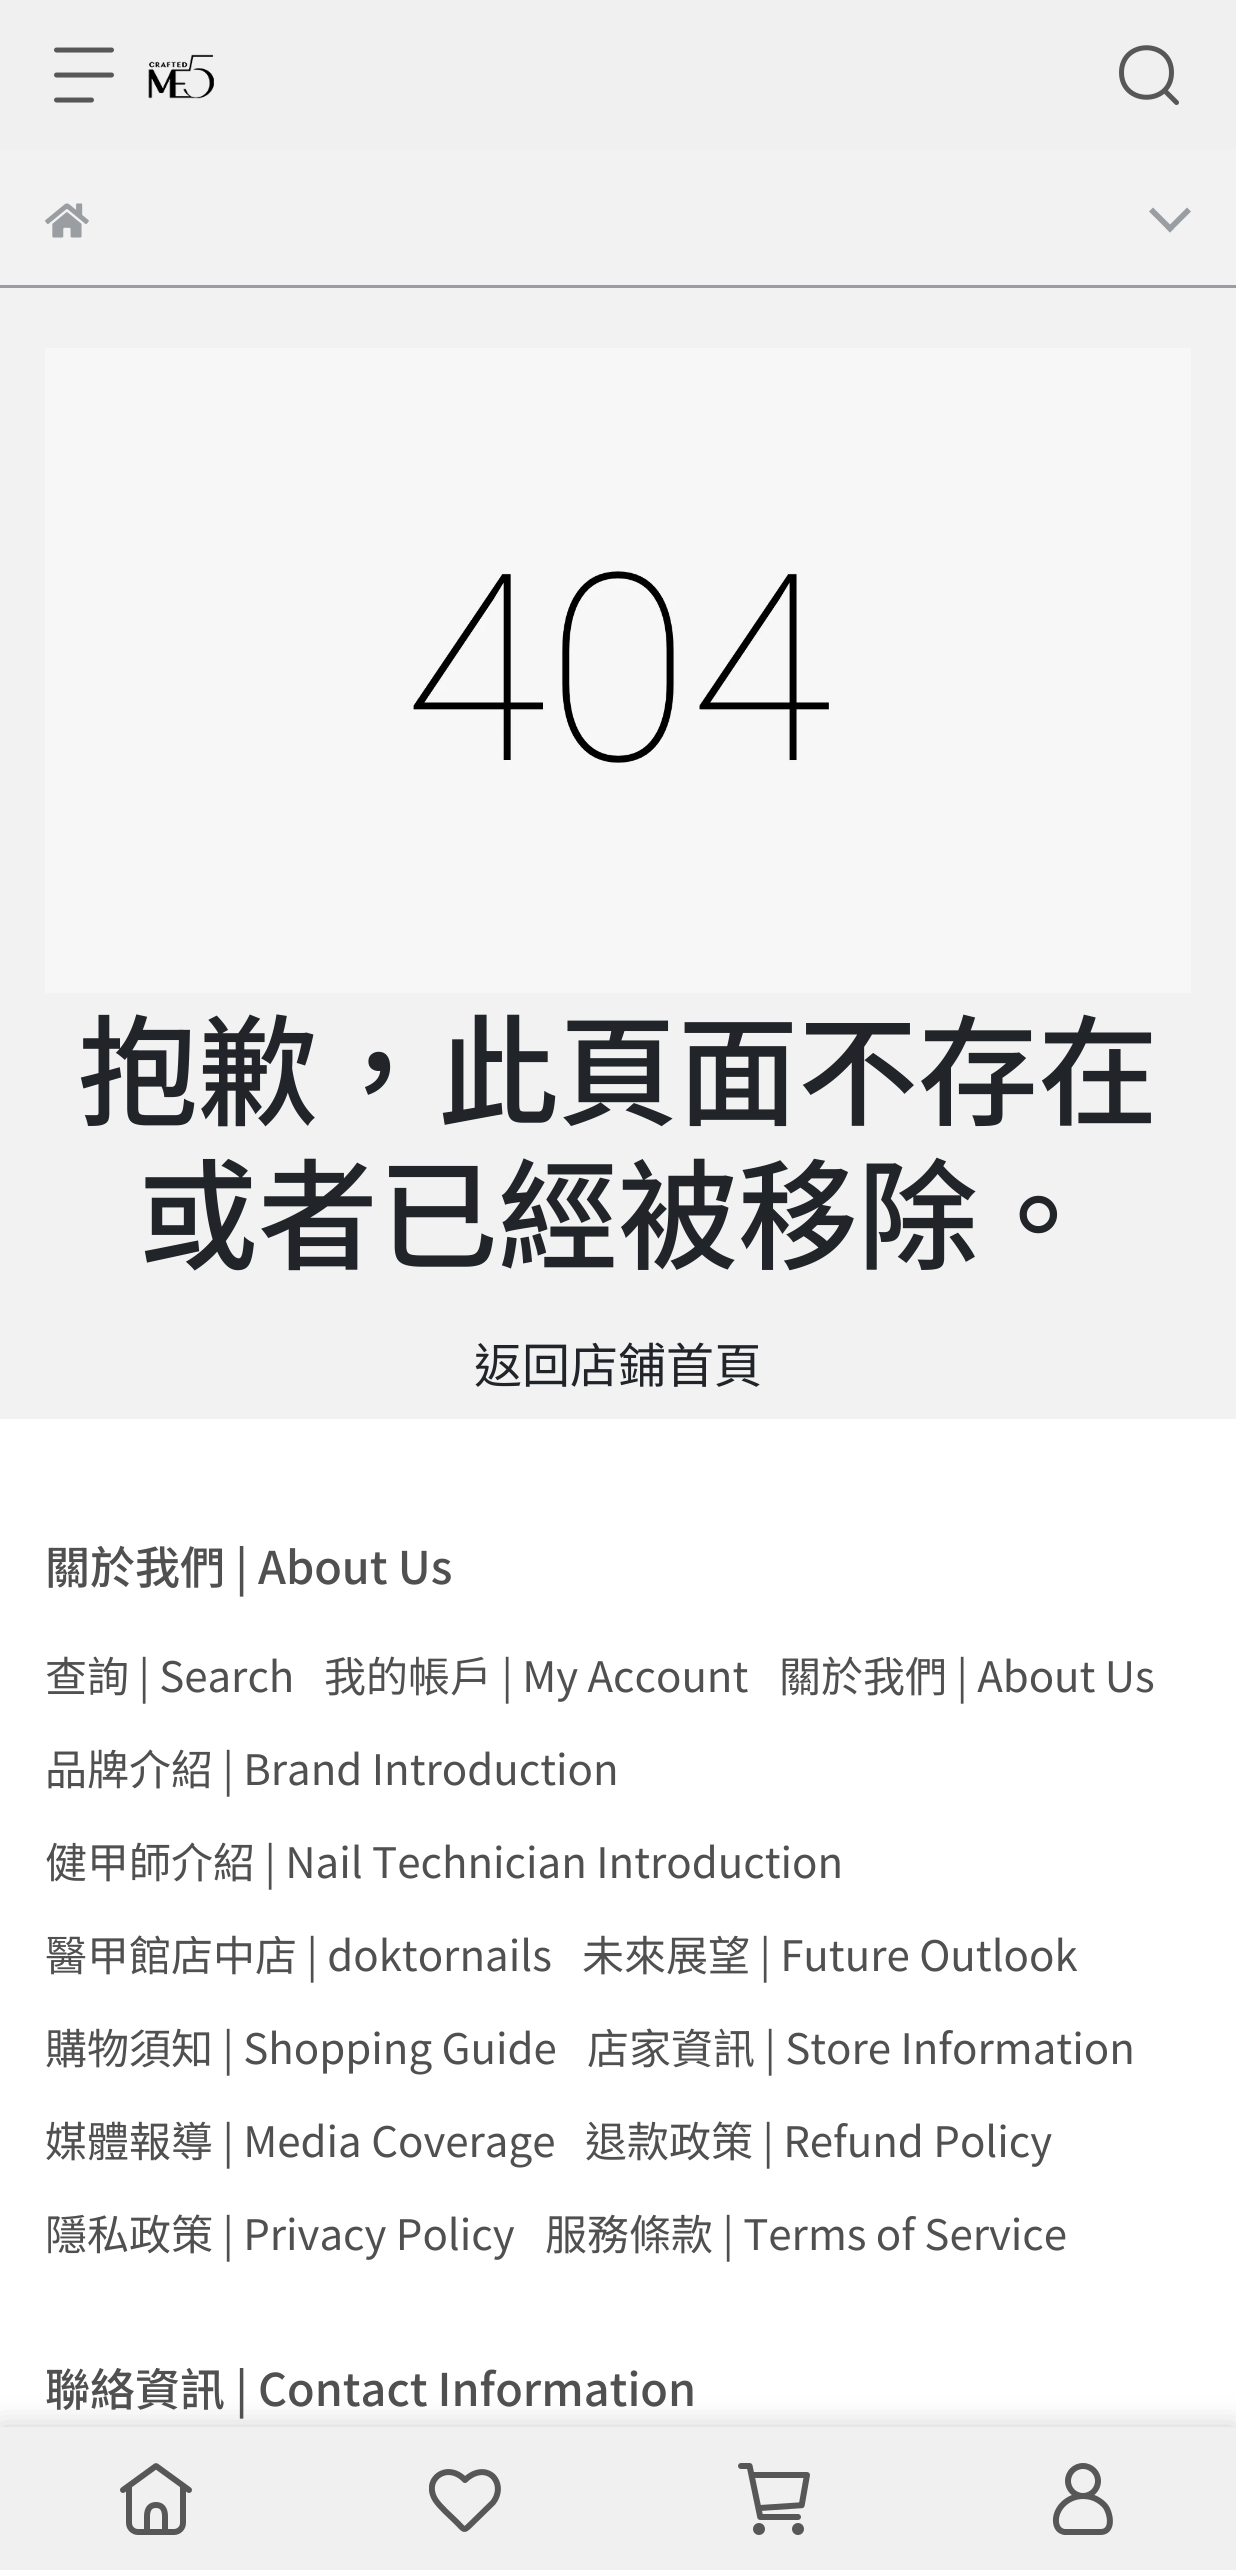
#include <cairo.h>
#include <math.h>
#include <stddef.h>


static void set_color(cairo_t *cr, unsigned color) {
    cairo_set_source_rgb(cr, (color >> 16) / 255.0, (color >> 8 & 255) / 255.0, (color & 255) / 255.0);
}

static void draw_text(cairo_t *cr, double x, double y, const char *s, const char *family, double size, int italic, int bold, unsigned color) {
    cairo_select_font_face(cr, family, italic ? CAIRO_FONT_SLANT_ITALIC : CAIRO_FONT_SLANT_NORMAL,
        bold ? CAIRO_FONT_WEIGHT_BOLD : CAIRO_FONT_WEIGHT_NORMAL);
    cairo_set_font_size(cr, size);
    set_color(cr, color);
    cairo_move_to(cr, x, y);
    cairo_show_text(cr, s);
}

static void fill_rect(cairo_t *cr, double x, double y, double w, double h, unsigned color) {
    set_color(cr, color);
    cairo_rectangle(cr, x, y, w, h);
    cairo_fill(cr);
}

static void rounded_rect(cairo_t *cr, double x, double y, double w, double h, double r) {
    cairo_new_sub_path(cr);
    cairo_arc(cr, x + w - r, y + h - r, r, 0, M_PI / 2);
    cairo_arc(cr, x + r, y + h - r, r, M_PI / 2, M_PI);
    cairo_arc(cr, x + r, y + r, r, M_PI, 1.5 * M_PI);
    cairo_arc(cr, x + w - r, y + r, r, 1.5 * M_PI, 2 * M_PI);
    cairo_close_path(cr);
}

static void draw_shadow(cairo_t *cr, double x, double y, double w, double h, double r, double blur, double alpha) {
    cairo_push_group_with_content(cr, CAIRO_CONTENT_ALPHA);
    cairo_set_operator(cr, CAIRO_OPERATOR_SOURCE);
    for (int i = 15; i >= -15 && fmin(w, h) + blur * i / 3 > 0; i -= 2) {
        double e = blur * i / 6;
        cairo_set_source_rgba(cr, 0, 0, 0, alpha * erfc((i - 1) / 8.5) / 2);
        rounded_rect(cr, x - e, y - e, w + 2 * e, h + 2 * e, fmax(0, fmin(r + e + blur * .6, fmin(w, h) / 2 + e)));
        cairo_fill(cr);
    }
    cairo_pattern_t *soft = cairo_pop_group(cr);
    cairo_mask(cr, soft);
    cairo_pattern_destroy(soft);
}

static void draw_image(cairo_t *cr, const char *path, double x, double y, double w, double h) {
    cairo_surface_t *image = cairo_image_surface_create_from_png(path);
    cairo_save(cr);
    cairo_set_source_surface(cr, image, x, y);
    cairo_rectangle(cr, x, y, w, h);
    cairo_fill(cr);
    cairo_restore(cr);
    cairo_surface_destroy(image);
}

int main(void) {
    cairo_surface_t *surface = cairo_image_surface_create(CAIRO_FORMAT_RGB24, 1236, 2570);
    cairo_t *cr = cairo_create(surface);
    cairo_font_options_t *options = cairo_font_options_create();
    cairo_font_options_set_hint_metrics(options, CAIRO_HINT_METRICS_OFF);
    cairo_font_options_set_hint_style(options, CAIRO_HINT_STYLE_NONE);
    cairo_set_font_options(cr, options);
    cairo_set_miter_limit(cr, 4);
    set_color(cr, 0xFFFFFF);
    cairo_paint(cr);
    fill_rect(cr, 0, 0, 1236, 150, 0xF0F0F0);
    draw_image(cr, "assets/img1.png", 54, 47, 60, 56);
    draw_image(cr, "assets/img2.png", 148, 54, 66, 45);
    cairo_new_path(cr);
    cairo_move_to(cr, 1171.5, 72.5);
    cairo_curve_to(cr, 1171.5, 105.5, 1121.5, 105.5, 1121.5, 72.5);
    cairo_curve_to(cr, 1121.5, 39.5, 1171.5, 39.5, 1171.5, 72.5);
    cairo_close_path(cr);
    cairo_move_to(cr, 1166.5, 92.5);
    cairo_line_to(cr, 1176.5, 102.5);
    set_color(cr, 0x575757);
    cairo_set_line_width(cr, 5);
    cairo_set_line_cap(cr, CAIRO_LINE_CAP_ROUND);
    cairo_set_line_join(cr, CAIRO_LINE_JOIN_ROUND);
    cairo_stroke(cr);
    set_color(cr, 0x000000);
    draw_shadow(cr, 0, 2427, 1236, 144, 0, 15, 0.2);
    fill_rect(cr, 0, 2427, 1236, 143, 0xF0F0F0);
    draw_image(cr, "assets/img3.png", 120, 2463, 72, 72);
    cairo_save(cr);
    cairo_rectangle(cr, 429, 2463, 72, 72);
    cairo_clip(cr);
    cairo_new_path(cr);
    cairo_move_to(cr, 493, 2476.5);
    cairo_curve_to(cr, 484.5, 2468.5, 472.5, 2472.5, 465, 2480);
    cairo_curve_to(cr, 447, 2461, 422.5, 2479.5, 435.5, 2500);
    cairo_curve_to(cr, 440.5, 2507.5, 449.5, 2515, 455.5, 2521);
    cairo_curve_to(cr, 464.5, 2529.5, 463, 2532, 470.5, 2524.5);
    cairo_line_to(cr, 493, 2502.5);
    cairo_curve_to(cr, 499, 2495, 500, 2484, 493, 2476.5);
    cairo_close_path(cr);
    set_color(cr, 0x575757);
    cairo_set_line_width(cr, 6);
    cairo_stroke(cr);
    cairo_restore(cr);
    draw_image(cr, "assets/img4.png", 738, 2463, 72, 72);
    cairo_arc(cr, 1083, 2481, 15, 0, 2 * M_PI);
    set_color(cr, 0x575757);
    cairo_set_line_width(cr, 6);
    cairo_set_line_cap(cr, CAIRO_LINE_CAP_BUTT);
    cairo_set_line_join(cr, CAIRO_LINE_JOIN_MITER);
    cairo_stroke(cr);
    cairo_new_path(cr);
    cairo_move_to(cr, 1100, 2532);
    cairo_line_to(cr, 1064.5, 2532);
    cairo_curve_to(cr, 1056, 2530.5, 1055, 2522, 1056.5, 2515.5);
    cairo_curve_to(cr, 1058.5, 2507.5, 1065, 2501, 1072.5, 2498);
    cairo_curve_to(cr, 1077.5, 2496, 1083, 2495.5, 1088.5, 2496.5);
    cairo_curve_to(cr, 1095, 2497.5, 1101.5, 2501.5, 1105.5, 2506.5);
    cairo_curve_to(cr, 1110.5, 2513.5, 1114, 2532.5, 1100, 2532);
    cairo_close_path(cr);
    cairo_stroke(cr);
    fill_rect(cr, 0, 150, 1236, 1269, 0xF2F2F2);
    fill_rect(cr, 0, 285, 1236, 3, 0x9A9EA2);
    draw_image(cr, "assets/img5.png", 45, 203, 44, 35);
    cairo_new_path(cr);
    cairo_move_to(cr, 1166, 228.5);
    cairo_line_to(cr, 1187, 207.5);
    cairo_line_to(cr, 1191, 211.5);
    cairo_line_to(cr, 1170, 232.5);
    cairo_close_path(cr);
    cairo_fill(cr);
    cairo_new_path(cr);
    cairo_move_to(cr, 1149, 211.5);
    cairo_line_to(cr, 1153, 207.5);
    cairo_line_to(cr, 1174, 228.5);
    cairo_line_to(cr, 1170, 232.5);
    cairo_close_path(cr);
    cairo_fill(cr);
    draw_image(cr, "assets/img6.png", 45, 348, 1146, 645);
    draw_text(cr, 78, 1116, "抱歉，此頁面不存在", "Noto Sans TC Medium", 120, 0, 0, 0x212529);
    draw_text(cr, 138, 1260, "或者已經被移除。", "Noto Sans TC Medium", 120, 0, 0, 0x212529);
    draw_text(cr, 474, 1383, "返回店鋪首頁", "Noto Sans TC", 48, 0, 0, 0x212529);
    draw_text(cr, 45, 1584, "關於我們 | About Us", "Noto Sans TC Medium", 45, 0, 0, 0x505050);
    draw_text(cr, 45, 1692, "查詢 | Search", "Noto Sans TC", 42, 0, 0, 0x505050);
    draw_text(cr, 324, 1692, "我的帳戶 | My Account", "Noto Sans TC", 42, 0, 0, 0x505050);
    draw_text(cr, 779, 1692, "關於我們 | About Us", "Noto Sans TC", 42, 0, 0, 0x505050);
    draw_text(cr, 45, 1785, "品牌介紹 | Brand Introduction", "Noto Sans TC", 42, 0, 0, 0x505050);
    draw_text(cr, 45, 1878, "健甲師介紹 | Nail Technician Introduction", "Noto Sans TC", 42, 0, 0, 0x505050);
    draw_text(cr, 45, 1971, "醫甲館店中店 | doktornails", "Noto Sans TC", 42, 0, 0, 0x505050);
    draw_text(cr, 582, 1971, "未來展望 | Future Outlook", "Noto Sans TC", 42, 0, 0, 0x505050);
    draw_text(cr, 45, 2064, "購物須知 | Shopping Guide", "Noto Sans TC", 42, 0, 0, 0x505050);
    draw_text(cr, 587, 2064, "店家資訊 | Store Information", "Noto Sans TC", 42, 0, 0, 0x505050);
    draw_text(cr, 45, 2157, "媒體報導 | Media Coverage", "Noto Sans TC", 42, 0, 0, 0x505050);
    draw_text(cr, 585, 2157, "退款政策 | Refund Policy", "Noto Sans TC", 42, 0, 0, 0x505050);
    draw_text(cr, 45, 2250, "隱私政策 | Privacy Policy", "Noto Sans TC", 42, 0, 0, 0x505050);
    draw_text(cr, 545, 2250, "服務條款 | Terms of Service", "Noto Sans TC", 42, 0, 0, 0x505050);
    draw_text(cr, 45, 2406, "聯絡資訊 | Contact Information", "Noto Sans TC Medium", 45, 0, 0, 0x505050);
    cairo_surface_write_to_png(surface, "output.png");
    cairo_font_options_destroy(options);
    cairo_destroy(cr);
    cairo_surface_destroy(surface);
    return 0;
}
